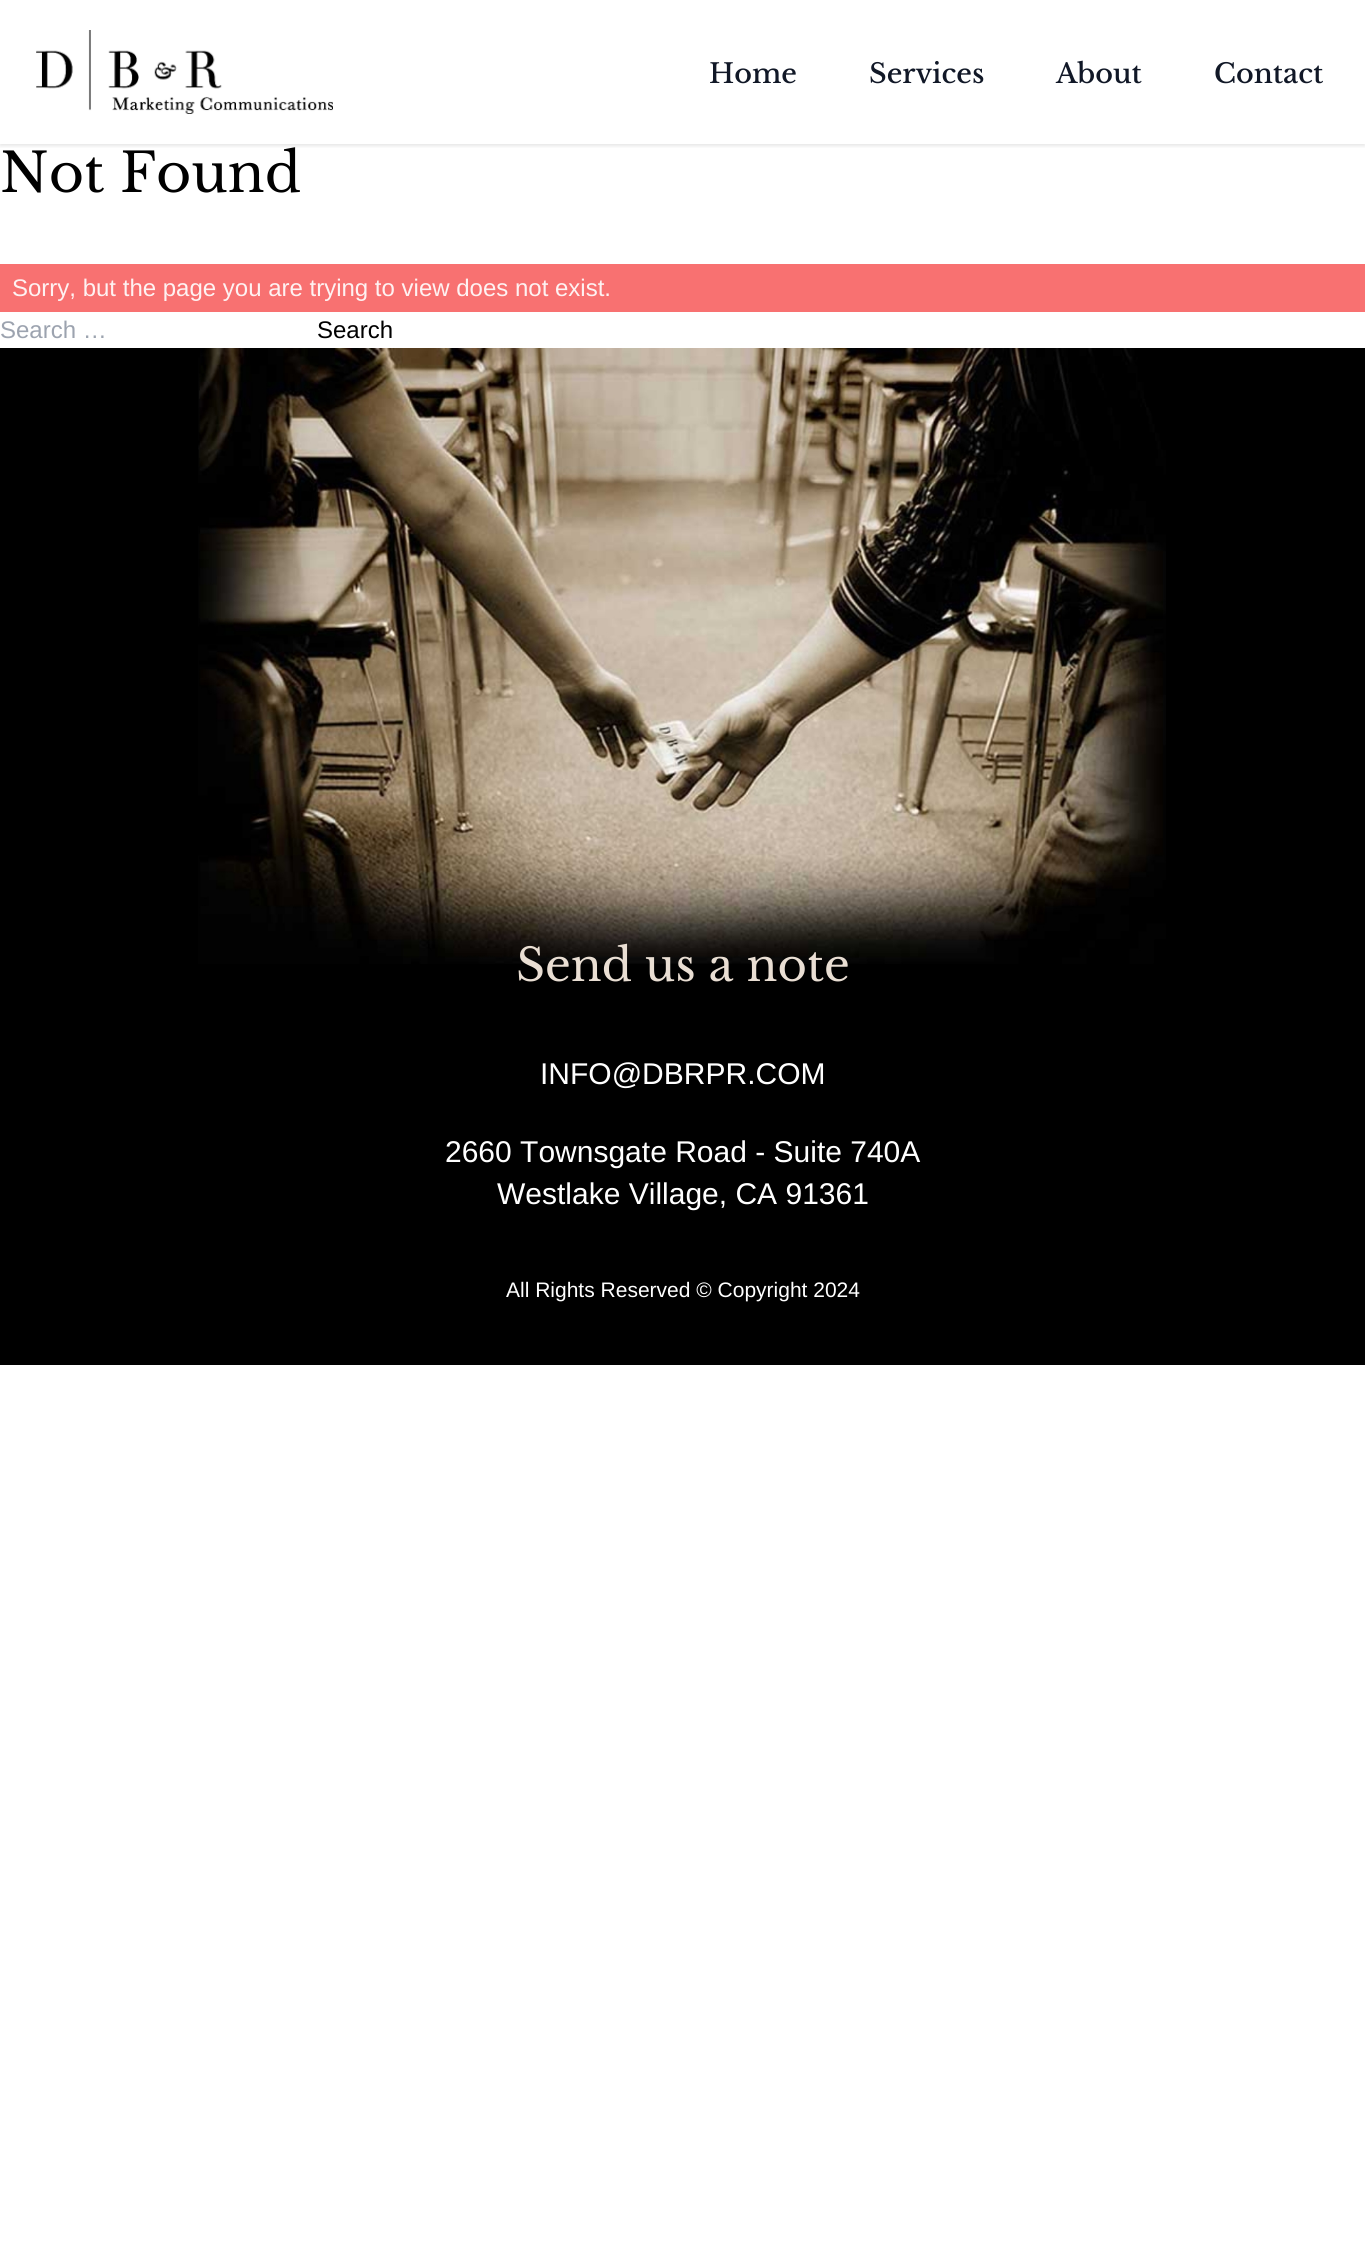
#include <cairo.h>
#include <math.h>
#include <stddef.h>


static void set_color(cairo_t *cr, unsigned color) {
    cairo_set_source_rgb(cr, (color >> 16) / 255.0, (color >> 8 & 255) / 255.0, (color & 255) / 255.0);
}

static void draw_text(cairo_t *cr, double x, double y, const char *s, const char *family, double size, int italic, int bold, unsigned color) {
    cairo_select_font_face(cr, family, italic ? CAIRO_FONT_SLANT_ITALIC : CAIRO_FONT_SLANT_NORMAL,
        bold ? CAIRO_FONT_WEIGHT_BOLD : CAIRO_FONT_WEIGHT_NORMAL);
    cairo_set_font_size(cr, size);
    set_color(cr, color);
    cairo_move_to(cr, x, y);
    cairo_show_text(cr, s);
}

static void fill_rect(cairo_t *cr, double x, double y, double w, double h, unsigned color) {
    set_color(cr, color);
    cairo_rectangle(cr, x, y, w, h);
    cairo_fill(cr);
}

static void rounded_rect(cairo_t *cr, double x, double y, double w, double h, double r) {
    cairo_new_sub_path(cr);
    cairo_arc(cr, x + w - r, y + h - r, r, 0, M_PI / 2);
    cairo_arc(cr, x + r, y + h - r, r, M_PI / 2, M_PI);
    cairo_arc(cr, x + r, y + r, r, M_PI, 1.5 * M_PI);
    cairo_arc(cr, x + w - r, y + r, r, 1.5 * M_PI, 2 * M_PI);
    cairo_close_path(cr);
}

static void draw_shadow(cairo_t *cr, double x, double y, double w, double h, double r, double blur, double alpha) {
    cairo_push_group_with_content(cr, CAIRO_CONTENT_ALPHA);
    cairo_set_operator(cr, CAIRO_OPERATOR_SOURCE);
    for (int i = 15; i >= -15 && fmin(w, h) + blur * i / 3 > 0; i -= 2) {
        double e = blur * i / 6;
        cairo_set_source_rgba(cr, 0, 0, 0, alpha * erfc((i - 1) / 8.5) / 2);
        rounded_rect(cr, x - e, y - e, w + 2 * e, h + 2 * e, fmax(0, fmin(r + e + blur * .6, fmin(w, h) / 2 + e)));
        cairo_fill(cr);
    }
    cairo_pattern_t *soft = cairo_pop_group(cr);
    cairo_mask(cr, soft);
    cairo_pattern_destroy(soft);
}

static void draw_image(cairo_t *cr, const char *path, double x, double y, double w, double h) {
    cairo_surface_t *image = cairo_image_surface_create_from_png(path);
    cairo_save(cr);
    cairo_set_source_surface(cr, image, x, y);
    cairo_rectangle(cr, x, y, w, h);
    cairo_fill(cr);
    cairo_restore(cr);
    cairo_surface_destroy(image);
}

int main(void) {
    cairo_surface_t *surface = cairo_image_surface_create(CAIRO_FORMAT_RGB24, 1365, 2249);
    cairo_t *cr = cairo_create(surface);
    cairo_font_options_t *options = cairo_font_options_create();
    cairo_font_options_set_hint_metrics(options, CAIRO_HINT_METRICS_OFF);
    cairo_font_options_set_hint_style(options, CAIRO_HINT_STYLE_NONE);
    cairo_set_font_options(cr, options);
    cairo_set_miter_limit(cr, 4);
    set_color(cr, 0xFFFFFF);
    cairo_paint(cr);
    cairo_save(cr);
    cairo_rectangle(cr, 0, 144, 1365, 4);
    cairo_clip(cr);
    set_color(cr, 0x000000);
    draw_shadow(cr, 0, 2, 1365, 144, 0, 2, 0.1);
    cairo_restore(cr);
    draw_image(cr, "assets/img1.png", 36, 30, 297, 84);
    draw_text(cr, 709, 83, "Home", "Libre Baskerville Medium", 27, 0, 0, 0x111827);
    draw_text(cr, 869, 83, "Services", "Libre Baskerville Medium", 27, 0, 0, 0x111827);
    draw_text(cr, 1056, 83, "About", "Libre Baskerville Medium", 27, 0, 0, 0x111827);
    draw_text(cr, 1214, 83, "Contact", "Libre Baskerville Medium", 27, 0, 0, 0x111827);
    draw_text(cr, 0, 192, "Not Found", "Libre Baskerville", 54, 0, 0, 0x000000);
    fill_rect(cr, 0, 264, 1365, 48, 0xF87171);
    draw_text(cr, 12, 296, "Sorry, but the page you are trying to view does not exist.", "Liberation Sans", 24, 0, 0, 0xFEF2F2);
    draw_text(cr, 0, 338, "Search …", "Liberation Sans", 24, 0, 0, 0x9CA3AF);
    draw_text(cr, 317, 338, "Search", "Liberation Sans", 24, 0, 0, 0x000000);
    fill_rect(cr, 0, 348, 1365, 1017, 0x000000);
    draw_image(cr, "assets/img2.png", 198, 348, 968, 616);
    draw_text(cr, 516, 981, "Send us a note", "Libre Baskerville", 45, 0, 0, 0xE9DED3);
    draw_text(cr, 540, 1084, "INFO@DBRPR.COM", "Liberation Sans", 30, 0, 0, 0xFFFFFF);
    draw_text(cr, 445, 1162, "2660 Townsgate Road - Suite 740A", "Liberation Sans", 30, 0, 0, 0xFFFFFF);
    draw_text(cr, 497, 1204, "Westlake Village, CA 91361", "Liberation Sans", 30, 0, 0, 0xFFFFFF);
    draw_text(cr, 506, 1297, "All Rights Reserved © Copyright 2024", "Liberation Sans", 21, 0, 0, 0xFFFFFF);
    cairo_surface_write_to_png(surface, "output.png");
    cairo_font_options_destroy(options);
    cairo_destroy(cr);
    cairo_surface_destroy(surface);
    return 0;
}
